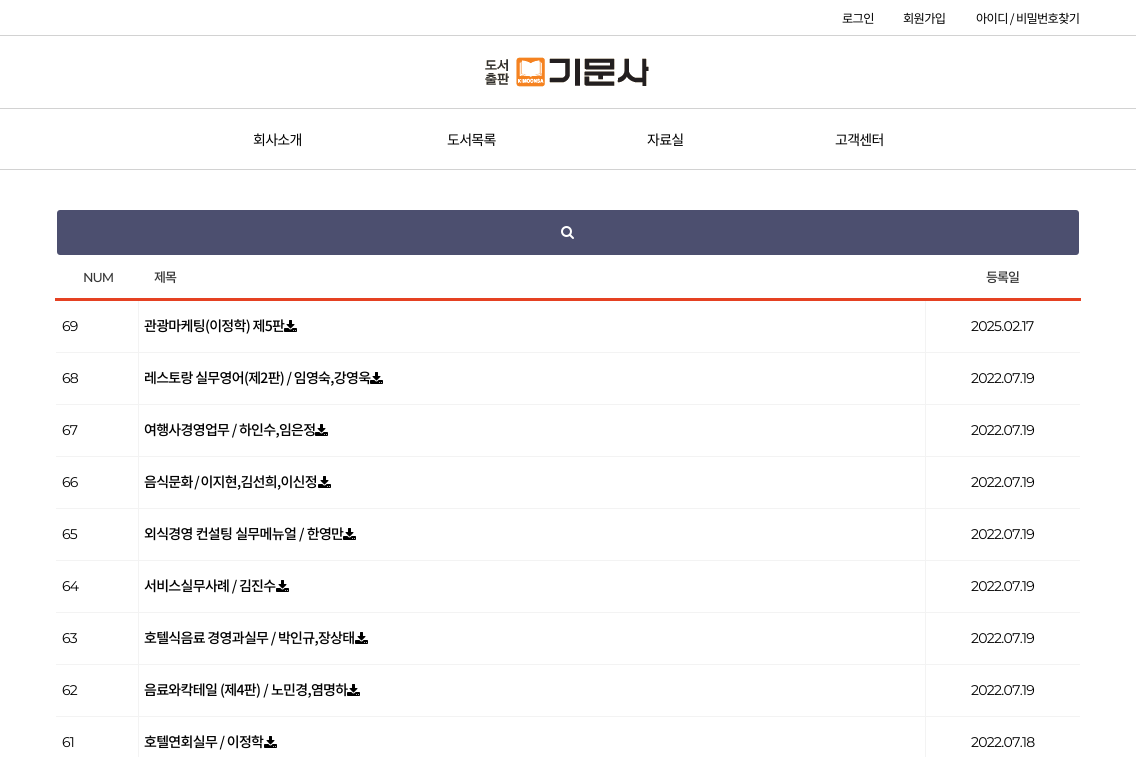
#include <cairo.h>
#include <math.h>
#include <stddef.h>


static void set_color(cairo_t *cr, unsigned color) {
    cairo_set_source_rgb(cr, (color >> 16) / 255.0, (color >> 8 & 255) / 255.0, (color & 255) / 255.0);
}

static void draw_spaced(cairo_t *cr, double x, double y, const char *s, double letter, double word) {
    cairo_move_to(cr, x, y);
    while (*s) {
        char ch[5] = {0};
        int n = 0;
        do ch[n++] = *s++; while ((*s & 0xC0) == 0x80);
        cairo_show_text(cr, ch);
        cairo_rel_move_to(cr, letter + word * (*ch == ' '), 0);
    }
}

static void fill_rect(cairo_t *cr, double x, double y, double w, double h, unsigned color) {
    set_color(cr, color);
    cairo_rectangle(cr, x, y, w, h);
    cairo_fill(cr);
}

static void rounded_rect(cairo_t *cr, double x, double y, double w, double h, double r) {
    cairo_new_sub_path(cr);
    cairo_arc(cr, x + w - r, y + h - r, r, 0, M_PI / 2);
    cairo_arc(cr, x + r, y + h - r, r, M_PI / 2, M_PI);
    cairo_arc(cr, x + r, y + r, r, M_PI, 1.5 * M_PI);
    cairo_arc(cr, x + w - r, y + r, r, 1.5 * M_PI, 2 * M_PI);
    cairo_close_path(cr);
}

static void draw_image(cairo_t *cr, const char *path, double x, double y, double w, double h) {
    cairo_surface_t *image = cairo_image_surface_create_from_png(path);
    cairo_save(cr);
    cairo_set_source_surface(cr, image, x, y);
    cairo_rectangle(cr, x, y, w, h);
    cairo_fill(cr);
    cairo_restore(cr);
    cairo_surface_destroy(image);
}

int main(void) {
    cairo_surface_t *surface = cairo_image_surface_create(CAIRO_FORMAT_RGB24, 1136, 757);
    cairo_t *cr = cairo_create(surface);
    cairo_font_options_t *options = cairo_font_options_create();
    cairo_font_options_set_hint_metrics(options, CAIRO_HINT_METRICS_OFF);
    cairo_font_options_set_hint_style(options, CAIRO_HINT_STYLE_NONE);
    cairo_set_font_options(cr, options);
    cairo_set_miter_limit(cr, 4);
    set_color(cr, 0xFFFFFF);
    cairo_paint(cr);
    cairo_select_font_face(cr, "Noto Sans KR", CAIRO_FONT_SLANT_NORMAL, CAIRO_FONT_WEIGHT_NORMAL);
    cairo_set_font_size(cr, 12.25);
    set_color(cr, 0x000000);
    draw_spaced(cr, 842, 23, "로그인", -0.7, 0);
    draw_spaced(cr, 903, 23, "회원가입", -0.7, 0);
    draw_spaced(cr, 976, 23, "아이디 / 비밀번호찾기", -0.7, 0);
    fill_rect(cr, 0, 35, 1136, 1, 0xD2D2D2);
    fill_rect(cr, 0, 108, 1136, 1, 0xD2D2D2);
    draw_image(cr, "assets/img1.png", 485, 57, 164, 30);
    fill_rect(cr, 0, 169, 1136, 1, 0xD2D2D2);
    cairo_set_font_size(cr, 14);
    set_color(cr, 0x000000);
    draw_spaced(cr, 253, 145, "회사소개", -0.7, 0);
    draw_spaced(cr, 447, 145, "도서목록", -0.7, 0);
    draw_spaced(cr, 647, 145, "자료실", -0.7, 0);
    draw_spaced(cr, 835, 145, "고객센터", -0.7, 0);
    set_color(cr, 0x4C4F6F);
    rounded_rect(cr, 57, 210, 1022, 45, 3);
    cairo_fill(cr);
    draw_image(cr, "assets/img2.png", 561, 226, 13, 13);
    cairo_select_font_face(cr, "Montserrat Medium", CAIRO_FONT_SLANT_NORMAL, CAIRO_FONT_WEIGHT_NORMAL);
    cairo_set_font_size(cr, 13);
    set_color(cr, 0x383838);
    draw_spaced(cr, 83, 282, "NUM", -1, 0);
    cairo_select_font_face(cr, "Noto Sans KR Medium", CAIRO_FONT_SLANT_NORMAL, CAIRO_FONT_WEIGHT_NORMAL);
    draw_spaced(cr, 154, 282, "제목", -1, 0);
    fill_rect(cr, 925, 352, 155, 1, 0xF3F3F3);
    fill_rect(cr, 925, 404, 155, 1, 0xF3F3F3);
    fill_rect(cr, 925, 456, 155, 1, 0xF3F3F3);
    fill_rect(cr, 925, 508, 155, 1, 0xF3F3F3);
    fill_rect(cr, 925, 560, 155, 1, 0xF3F3F3);
    fill_rect(cr, 925, 612, 155, 1, 0xF3F3F3);
    fill_rect(cr, 925, 664, 155, 1, 0xF3F3F3);
    fill_rect(cr, 925, 716, 155, 1, 0xF3F3F3);
    fill_rect(cr, 925, 716, 1, 41, 0xF3F3F3);
    fill_rect(cr, 138, 716, 788, 1, 0xF3F3F3);
    fill_rect(cr, 925, 664, 1, 53, 0xF3F3F3);
    fill_rect(cr, 138, 664, 788, 1, 0xF3F3F3);
    fill_rect(cr, 925, 612, 1, 53, 0xF3F3F3);
    fill_rect(cr, 138, 612, 788, 1, 0xF3F3F3);
    fill_rect(cr, 925, 560, 1, 53, 0xF3F3F3);
    fill_rect(cr, 138, 560, 788, 1, 0xF3F3F3);
    fill_rect(cr, 925, 508, 1, 53, 0xF3F3F3);
    fill_rect(cr, 138, 508, 788, 1, 0xF3F3F3);
    fill_rect(cr, 925, 456, 1, 53, 0xF3F3F3);
    fill_rect(cr, 138, 456, 788, 1, 0xF3F3F3);
    fill_rect(cr, 925, 404, 1, 53, 0xF3F3F3);
    fill_rect(cr, 138, 404, 788, 1, 0xF3F3F3);
    fill_rect(cr, 925, 352, 1, 53, 0xF3F3F3);
    fill_rect(cr, 138, 352, 788, 1, 0xF3F3F3);
    fill_rect(cr, 138, 716, 1, 41, 0xF3F3F3);
    fill_rect(cr, 56, 716, 83, 1, 0xF3F3F3);
    fill_rect(cr, 138, 664, 1, 53, 0xF3F3F3);
    fill_rect(cr, 56, 664, 83, 1, 0xF3F3F3);
    fill_rect(cr, 138, 612, 1, 53, 0xF3F3F3);
    fill_rect(cr, 56, 612, 83, 1, 0xF3F3F3);
    fill_rect(cr, 138, 560, 1, 53, 0xF3F3F3);
    fill_rect(cr, 56, 560, 83, 1, 0xF3F3F3);
    fill_rect(cr, 138, 508, 1, 53, 0xF3F3F3);
    fill_rect(cr, 56, 508, 83, 1, 0xF3F3F3);
    fill_rect(cr, 138, 456, 1, 53, 0xF3F3F3);
    fill_rect(cr, 56, 456, 83, 1, 0xF3F3F3);
    fill_rect(cr, 138, 404, 1, 53, 0xF3F3F3);
    fill_rect(cr, 56, 404, 83, 1, 0xF3F3F3);
    fill_rect(cr, 138, 352, 1, 53, 0xF3F3F3);
    fill_rect(cr, 56, 352, 83, 1, 0xF3F3F3);
    fill_rect(cr, 138, 299, 1, 54, 0xF3F3F3);
    fill_rect(cr, 925, 299, 1, 54, 0xF3F3F3);
    fill_rect(cr, 55, 298, 1026, 3, 0xE54122);
    set_color(cr, 0x383838);
    draw_spaced(cr, 986, 282, "등록일", -1, 0);
    cairo_select_font_face(cr, "Montserrat", CAIRO_FONT_SLANT_NORMAL, CAIRO_FONT_WEIGHT_NORMAL);
    cairo_set_font_size(cr, 14);
    set_color(cr, 0x000000);
    draw_spaced(cr, 62, 331, "69", -0.7, 0);
    cairo_select_font_face(cr, "Noto Sans KR Medium", CAIRO_FONT_SLANT_NORMAL, CAIRO_FONT_WEIGHT_NORMAL);
    draw_spaced(cr, 144, 331, "관광마케팅(이정학) 제5판", -0.7, 0);
    draw_image(cr, "assets/img3.png", 284, 320, 13, 12);
    cairo_select_font_face(cr, "Montserrat", CAIRO_FONT_SLANT_NORMAL, CAIRO_FONT_WEIGHT_NORMAL);
    draw_spaced(cr, 971, 331, "2025.02.17", -0.7, 0);
    draw_spaced(cr, 62, 383, "68", -0.7, 0);
    cairo_select_font_face(cr, "Noto Sans KR Medium", CAIRO_FONT_SLANT_NORMAL, CAIRO_FONT_WEIGHT_NORMAL);
    draw_spaced(cr, 144, 383, "레스토랑 실무영어(제2판) / 임영숙,강영욱", -0.7, 0);
    draw_image(cr, "assets/img3.png", 370, 372, 13, 12);
    cairo_select_font_face(cr, "Montserrat", CAIRO_FONT_SLANT_NORMAL, CAIRO_FONT_WEIGHT_NORMAL);
    draw_spaced(cr, 971, 383, "2022.07.19", -0.7, 0);
    draw_spaced(cr, 62, 435, "67", -0.7, 0);
    cairo_select_font_face(cr, "Noto Sans KR Medium", CAIRO_FONT_SLANT_NORMAL, CAIRO_FONT_WEIGHT_NORMAL);
    draw_spaced(cr, 144, 435, "여행사경영업무 / 하인수,임은정", -0.7, 0);
    draw_image(cr, "assets/img3.png", 315, 424, 13, 12);
    cairo_select_font_face(cr, "Montserrat", CAIRO_FONT_SLANT_NORMAL, CAIRO_FONT_WEIGHT_NORMAL);
    draw_spaced(cr, 971, 435, "2022.07.19", -0.7, 0);
    draw_spaced(cr, 62, 487, "66", -0.7, 0);
    cairo_select_font_face(cr, "Noto Sans KR Medium", CAIRO_FONT_SLANT_NORMAL, CAIRO_FONT_WEIGHT_NORMAL);
    draw_spaced(cr, 144, 487, "음식문화 / 이지현,김선희,이신정", -0.7, -1);
    draw_image(cr, "assets/img3.png", 318, 476, 13, 12);
    cairo_select_font_face(cr, "Montserrat", CAIRO_FONT_SLANT_NORMAL, CAIRO_FONT_WEIGHT_NORMAL);
    draw_spaced(cr, 971, 487, "2022.07.19", -0.7, 0);
    draw_spaced(cr, 62, 539, "65", -0.7, 0);
    cairo_select_font_face(cr, "Noto Sans KR Medium", CAIRO_FONT_SLANT_NORMAL, CAIRO_FONT_WEIGHT_NORMAL);
    draw_spaced(cr, 144, 539, "외식경영 컨설팅 실무메뉴얼 / 한영만", -0.7, 0.5);
    draw_image(cr, "assets/img3.png", 343, 528, 13, 12);
    cairo_select_font_face(cr, "Montserrat", CAIRO_FONT_SLANT_NORMAL, CAIRO_FONT_WEIGHT_NORMAL);
    draw_spaced(cr, 971, 539, "2022.07.19", -0.7, 0);
    draw_spaced(cr, 62, 591, "64", -0.7, 0);
    cairo_select_font_face(cr, "Noto Sans KR Medium", CAIRO_FONT_SLANT_NORMAL, CAIRO_FONT_WEIGHT_NORMAL);
    draw_spaced(cr, 144, 591, "서비스실무사례 / 김진수", -0.7, 0);
    draw_image(cr, "assets/img3.png", 276, 580, 13, 12);
    cairo_select_font_face(cr, "Montserrat", CAIRO_FONT_SLANT_NORMAL, CAIRO_FONT_WEIGHT_NORMAL);
    draw_spaced(cr, 971, 591, "2022.07.19", -0.7, 0);
    draw_spaced(cr, 62, 643, "63", -0.7, 0);
    cairo_select_font_face(cr, "Noto Sans KR Medium", CAIRO_FONT_SLANT_NORMAL, CAIRO_FONT_WEIGHT_NORMAL);
    draw_spaced(cr, 144, 643, "호텔식음료 경영과실무 / 박인규,장상태", -0.7, 0);
    draw_image(cr, "assets/img3.png", 355, 632, 13, 12);
    cairo_select_font_face(cr, "Montserrat", CAIRO_FONT_SLANT_NORMAL, CAIRO_FONT_WEIGHT_NORMAL);
    draw_spaced(cr, 971, 643, "2022.07.19", -0.7, 0);
    draw_spaced(cr, 62, 695, "62", -0.7, 0);
    cairo_select_font_face(cr, "Noto Sans KR Medium", CAIRO_FONT_SLANT_NORMAL, CAIRO_FONT_WEIGHT_NORMAL);
    draw_spaced(cr, 144, 695, "음료와칵테일 (제4판) / 노민경,염명하", -0.7, 0.5);
    draw_image(cr, "assets/img3.png", 347, 684, 13, 12);
    cairo_select_font_face(cr, "Montserrat", CAIRO_FONT_SLANT_NORMAL, CAIRO_FONT_WEIGHT_NORMAL);
    draw_spaced(cr, 971, 695, "2022.07.19", -0.7, 0);
    draw_spaced(cr, 62, 747, "61", -0.7, 0);
    cairo_select_font_face(cr, "Noto Sans KR Medium", CAIRO_FONT_SLANT_NORMAL, CAIRO_FONT_WEIGHT_NORMAL);
    draw_spaced(cr, 144, 747, "호텔연회실무 / 이정학", -0.7, 0);
    draw_image(cr, "assets/img3.png", 264, 736, 13, 12);
    cairo_select_font_face(cr, "Montserrat", CAIRO_FONT_SLANT_NORMAL, CAIRO_FONT_WEIGHT_NORMAL);
    draw_spaced(cr, 971, 747, "2022.07.18", -0.7, 0);
    cairo_surface_write_to_png(surface, "output.png");
    cairo_font_options_destroy(options);
    cairo_destroy(cr);
    cairo_surface_destroy(surface);
    return 0;
}
